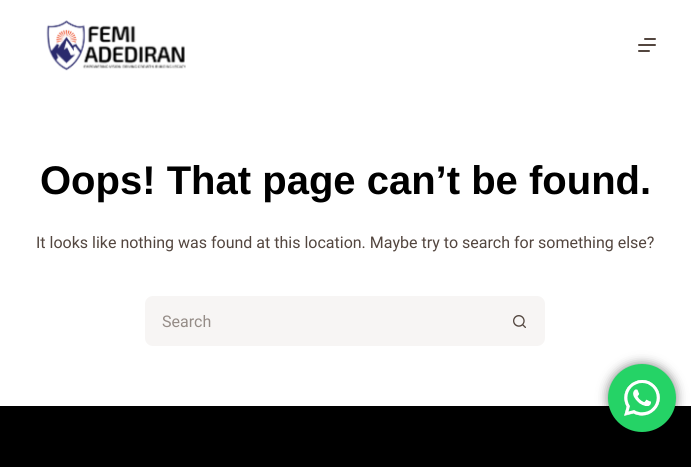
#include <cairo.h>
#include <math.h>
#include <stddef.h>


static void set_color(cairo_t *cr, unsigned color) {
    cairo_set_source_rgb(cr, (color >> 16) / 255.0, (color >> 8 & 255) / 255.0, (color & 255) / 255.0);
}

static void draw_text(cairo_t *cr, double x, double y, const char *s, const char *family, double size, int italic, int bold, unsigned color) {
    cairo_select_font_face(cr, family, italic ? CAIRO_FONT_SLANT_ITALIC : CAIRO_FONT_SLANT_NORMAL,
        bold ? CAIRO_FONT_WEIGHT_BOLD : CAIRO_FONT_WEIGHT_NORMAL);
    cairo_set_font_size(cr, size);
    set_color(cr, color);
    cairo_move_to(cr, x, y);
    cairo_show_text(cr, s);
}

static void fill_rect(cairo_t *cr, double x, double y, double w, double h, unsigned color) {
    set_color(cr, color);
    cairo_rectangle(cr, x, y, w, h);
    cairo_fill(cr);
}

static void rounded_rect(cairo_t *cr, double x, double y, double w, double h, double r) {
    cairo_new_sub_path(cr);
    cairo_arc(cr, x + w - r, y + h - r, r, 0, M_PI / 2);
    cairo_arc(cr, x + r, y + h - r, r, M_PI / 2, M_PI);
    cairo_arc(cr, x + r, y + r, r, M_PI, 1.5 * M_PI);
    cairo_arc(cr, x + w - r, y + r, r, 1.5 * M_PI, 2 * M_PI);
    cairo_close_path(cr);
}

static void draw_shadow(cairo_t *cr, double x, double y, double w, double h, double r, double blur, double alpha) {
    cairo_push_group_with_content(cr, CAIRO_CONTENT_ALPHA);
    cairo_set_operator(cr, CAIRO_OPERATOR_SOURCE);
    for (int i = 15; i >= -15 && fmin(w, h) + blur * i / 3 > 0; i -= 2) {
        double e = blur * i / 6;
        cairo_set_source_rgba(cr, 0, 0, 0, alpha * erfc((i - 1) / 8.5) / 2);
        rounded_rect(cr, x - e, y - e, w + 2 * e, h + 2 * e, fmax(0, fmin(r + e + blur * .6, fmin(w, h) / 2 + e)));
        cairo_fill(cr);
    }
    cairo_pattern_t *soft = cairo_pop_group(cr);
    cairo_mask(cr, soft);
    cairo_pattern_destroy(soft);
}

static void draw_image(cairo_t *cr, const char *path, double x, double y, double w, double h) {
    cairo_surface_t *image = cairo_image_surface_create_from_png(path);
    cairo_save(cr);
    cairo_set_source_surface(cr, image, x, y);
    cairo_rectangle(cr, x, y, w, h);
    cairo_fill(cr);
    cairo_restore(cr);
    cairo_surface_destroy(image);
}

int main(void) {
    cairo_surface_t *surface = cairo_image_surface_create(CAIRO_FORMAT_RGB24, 691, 467);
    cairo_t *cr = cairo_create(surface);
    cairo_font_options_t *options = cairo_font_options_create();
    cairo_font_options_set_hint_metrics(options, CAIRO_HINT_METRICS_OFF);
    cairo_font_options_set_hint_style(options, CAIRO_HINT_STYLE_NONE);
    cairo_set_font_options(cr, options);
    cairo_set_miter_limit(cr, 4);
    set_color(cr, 0xFFFFFF);
    cairo_paint(cr);
    draw_image(cr, "assets/img1.png", 46, 20, 140, 51);
    set_color(cr, 0x53463F);
    rounded_rect(cr, 644, 38, 12, 2, 1);
    cairo_fill(cr);
    rounded_rect(cr, 638, 44, 18, 2, 1);
    cairo_fill(cr);
    rounded_rect(cr, 638, 50, 12, 2, 1);
    cairo_fill(cr);
    draw_text(cr, 40, 194, "Oops! That page can’t be found.", "Liberation Sans", 40, 0, 1, 0x000000);
    draw_text(cr, 36, 248, "It looks like nothing was found at this location. Maybe try to search for something else?", "Roboto", 16, 0, 0, 0x53463F);
    set_color(cr, 0xF7F5F4);
    cairo_new_path(cr);
    cairo_move_to(cr, 153, 296);
    cairo_line_to(cr, 495, 296);
    cairo_line_to(cr, 495, 346);
    cairo_line_to(cr, 153, 346);
    cairo_curve_to(cr, 148.5, 346, 145, 342.5, 145, 338);
    cairo_line_to(cr, 145, 304);
    cairo_curve_to(cr, 145, 299.5, 148.5, 296, 153, 296);
    cairo_close_path(cr);
    cairo_fill(cr);
    draw_text(cr, 162, 327, "Search", "Roboto", 16, 0, 0, 0x958C87);
    set_color(cr, 0xF7F5F4);
    cairo_new_path(cr);
    cairo_move_to(cr, 495, 296);
    cairo_line_to(cr, 537, 296);
    cairo_curve_to(cr, 541.5, 296, 545, 299.5, 545, 304);
    cairo_line_to(cr, 545, 338);
    cairo_curve_to(cr, 545, 342.5, 541.5, 346, 537, 346);
    cairo_line_to(cr, 495, 346);
    cairo_close_path(cr);
    cairo_fill(cr);
    draw_image(cr, "assets/img2.png", 513, 315, 13, 13);
    fill_rect(cr, 0, 406, 691, 61, 0x000000);
    set_color(cr, 0x000000);
    draw_shadow(cr, 608, 364, 68, 68, 34, 5.5, 0.5);
    set_color(cr, 0x25D366);
    cairo_arc(cr, 642, 398, 34, 0, 2 * M_PI);
    cairo_fill(cr);
    draw_image(cr, "assets/img3.png", 624, 380, 36, 36);
    cairo_surface_write_to_png(surface, "output.png");
    cairo_font_options_destroy(options);
    cairo_destroy(cr);
    cairo_surface_destroy(surface);
    return 0;
}
